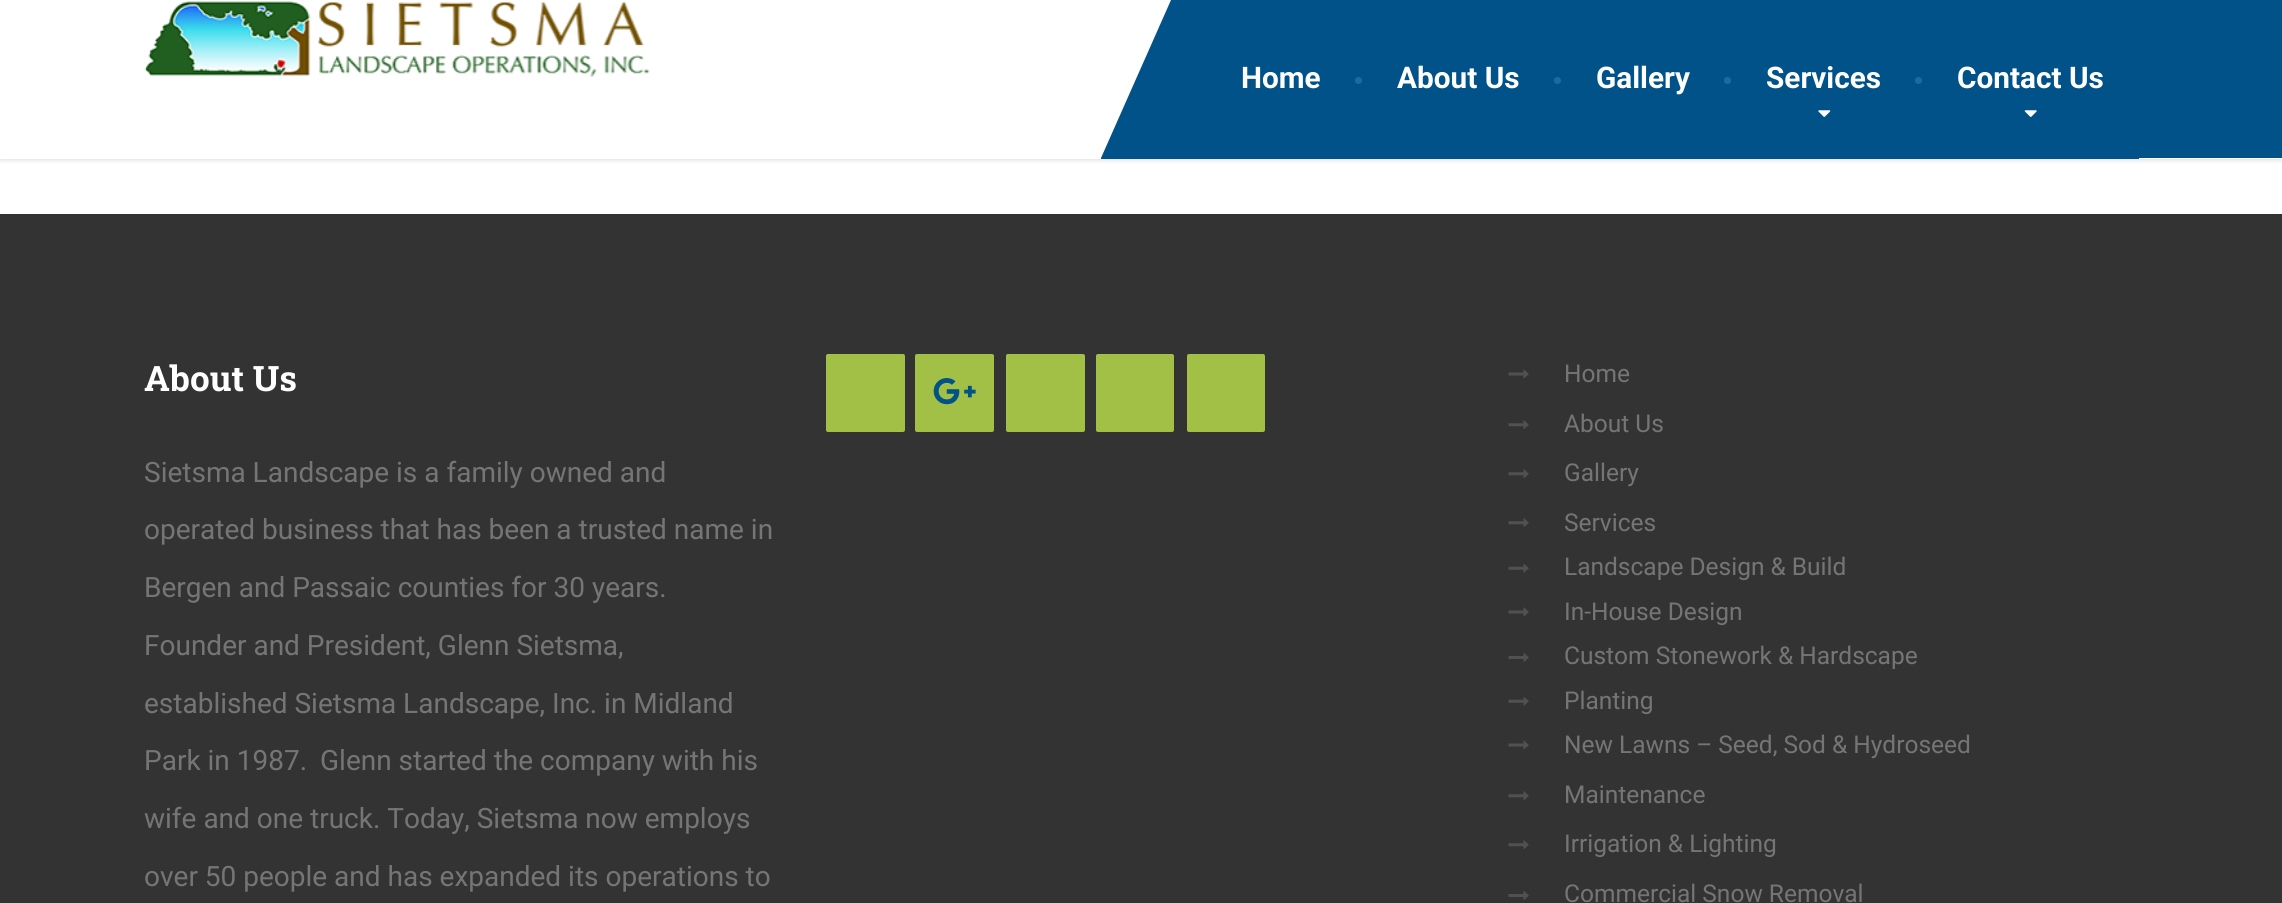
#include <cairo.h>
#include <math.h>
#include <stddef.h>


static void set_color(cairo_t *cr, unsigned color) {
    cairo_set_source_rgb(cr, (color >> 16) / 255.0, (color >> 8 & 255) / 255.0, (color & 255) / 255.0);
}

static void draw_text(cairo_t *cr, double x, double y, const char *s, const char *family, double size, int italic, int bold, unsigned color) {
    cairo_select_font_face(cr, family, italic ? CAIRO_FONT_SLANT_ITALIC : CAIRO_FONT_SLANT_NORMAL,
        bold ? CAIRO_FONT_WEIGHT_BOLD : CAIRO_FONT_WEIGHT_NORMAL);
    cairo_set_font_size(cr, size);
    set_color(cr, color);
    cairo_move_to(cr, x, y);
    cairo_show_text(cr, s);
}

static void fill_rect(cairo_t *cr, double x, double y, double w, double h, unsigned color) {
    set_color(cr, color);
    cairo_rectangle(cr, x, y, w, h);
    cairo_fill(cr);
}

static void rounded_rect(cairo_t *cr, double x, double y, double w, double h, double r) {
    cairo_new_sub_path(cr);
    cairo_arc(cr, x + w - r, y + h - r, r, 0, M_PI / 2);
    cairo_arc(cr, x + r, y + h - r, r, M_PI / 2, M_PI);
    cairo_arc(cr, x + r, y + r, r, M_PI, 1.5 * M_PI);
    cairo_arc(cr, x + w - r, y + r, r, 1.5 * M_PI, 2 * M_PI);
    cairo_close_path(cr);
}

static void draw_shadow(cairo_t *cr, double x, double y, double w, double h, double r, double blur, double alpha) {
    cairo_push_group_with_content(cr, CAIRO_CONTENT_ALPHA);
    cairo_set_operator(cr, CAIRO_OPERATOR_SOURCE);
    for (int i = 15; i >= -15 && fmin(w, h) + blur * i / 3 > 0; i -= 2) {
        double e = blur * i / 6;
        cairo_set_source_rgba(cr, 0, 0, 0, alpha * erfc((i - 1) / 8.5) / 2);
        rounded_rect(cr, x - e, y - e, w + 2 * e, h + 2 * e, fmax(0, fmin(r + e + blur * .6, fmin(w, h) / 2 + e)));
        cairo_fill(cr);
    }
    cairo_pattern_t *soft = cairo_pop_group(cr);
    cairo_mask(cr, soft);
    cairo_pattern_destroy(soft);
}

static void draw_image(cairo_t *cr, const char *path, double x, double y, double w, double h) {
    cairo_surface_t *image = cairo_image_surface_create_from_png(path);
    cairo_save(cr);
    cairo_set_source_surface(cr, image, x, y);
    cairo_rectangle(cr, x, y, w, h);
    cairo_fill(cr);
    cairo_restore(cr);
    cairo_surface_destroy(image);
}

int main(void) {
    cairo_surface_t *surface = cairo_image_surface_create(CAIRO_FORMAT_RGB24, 2282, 903);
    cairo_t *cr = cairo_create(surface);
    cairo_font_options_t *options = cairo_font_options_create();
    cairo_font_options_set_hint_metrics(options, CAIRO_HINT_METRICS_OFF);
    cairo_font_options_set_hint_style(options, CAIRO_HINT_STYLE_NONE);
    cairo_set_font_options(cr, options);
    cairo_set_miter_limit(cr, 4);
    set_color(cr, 0xFFFFFF);
    cairo_paint(cr);
    set_color(cr, 0x000000);
    draw_shadow(cr, 0, 2, 2282, 159, 0, 2, 0.1);
    fill_rect(cr, 0, 0, 2282, 159, 0xFFFFFF);
    draw_image(cr, "assets/img1.png", 144, 1, 506, 76);
    fill_rect(cr, 1101, 0, 1038, 159, 0x005289);
    set_color(cr, 0xFFFFFF);
    cairo_new_path(cr);
    cairo_move_to(cr, 1101, 158);
    cairo_line_to(cr, 1101, 0);
    cairo_line_to(cr, 1171, 0);
    cairo_close_path(cr);
    cairo_fill(cr);
    draw_text(cr, 1241, 88, "Home", "Roboto", 29.75, 0, 1, 0xFFFFFF);
    set_color(cr, 0x196BA2);
    cairo_new_path(cr);
    cairo_arc(cr, 1358.5, 80.5, 3.5, 0, 2 * M_PI);
    cairo_fill(cr);
    draw_text(cr, 1397, 88, "About Us", "Roboto", 29.75, 0, 1, 0xFFFFFF);
    set_color(cr, 0x196BA2);
    cairo_new_path(cr);
    cairo_arc(cr, 1557.5, 80.5, 3.5, 0, 2 * M_PI);
    cairo_fill(cr);
    draw_text(cr, 1596, 88, "Gallery", "Roboto", 29.75, 0, 1, 0xFFFFFF);
    set_color(cr, 0x196BA2);
    cairo_new_path(cr);
    cairo_arc(cr, 1727.5, 80.5, 3.5, 0, 2 * M_PI);
    cairo_fill(cr);
    draw_text(cr, 1766, 88, "Services", "Roboto", 29.75, 0, 1, 0xFFFFFF);
    draw_image(cr, "assets/img2.png", 1818, 110, 13, 7);
    set_color(cr, 0x196BA2);
    cairo_arc(cr, 1918.5, 80.5, 3.5, 0, 2 * M_PI);
    cairo_fill(cr);
    draw_text(cr, 1957, 88, "Contact Us", "Roboto", 29.75, 0, 1, 0xFFFFFF);
    draw_image(cr, "assets/img3.png", 2024, 110, 13, 7);
    fill_rect(cr, 2139, 0, 143, 158, 0x005289);
    fill_rect(cr, 0, 214, 2282, 689, 0x333333);
    draw_text(cr, 144, 391, "About Us", "Roboto Slab", 35, 0, 1, 0xFFFFFF);
    draw_text(cr, 144, 482, "Sietsma Landscape is a family owned and", "Roboto", 28, 0, 0, 0x757575);
    draw_text(cr, 144, 539, "operated business that has been a trusted name in", "Roboto", 28, 0, 0, 0x757575);
    draw_text(cr, 144, 597, "Bergen and Passaic counties for 30 years.", "Roboto", 28, 0, 0, 0x757575);
    draw_text(cr, 144, 655, "Founder and President, Glenn Sietsma,", "Roboto", 28, 0, 0, 0x757575);
    draw_text(cr, 144, 713, "established Sietsma Landscape, Inc. in Midland", "Roboto", 28, 0, 0, 0x757575);
    draw_text(cr, 144, 770, "Park in 1987.", "Roboto", 28, 0, 0, 0x757575);
    draw_text(cr, 320, 770, "Glenn started the company with his", "Roboto", 28, 0, 0, 0x757575);
    draw_text(cr, 144, 828, "wife and one truck. Today, Sietsma now employs", "Roboto", 28, 0, 0, 0x757575);
    draw_text(cr, 144, 886, "over 50 people and has expanded its operations to", "Roboto", 28, 0, 0, 0x757575);
    set_color(cr, 0xA2C046);
    rounded_rect(cr, 826, 354, 79, 78, 2);
    cairo_fill(cr);
    rounded_rect(cr, 915, 354, 79, 78, 2);
    cairo_fill(cr);
    draw_image(cr, "assets/img4.png", 933, 378, 43, 27);
    rounded_rect(cr, 1006, 354, 79, 78, 2);
    cairo_fill(cr);
    rounded_rect(cr, 1096, 354, 78, 78, 2);
    cairo_fill(cr);
    rounded_rect(cr, 1187, 354, 78, 78, 2);
    cairo_fill(cr);
    draw_image(cr, "assets/img5.png", 1508, 369, 21, 10);
    draw_text(cr, 1564, 382, "Home", "Roboto", 24.5, 0, 0, 0x757575);
    draw_image(cr, "assets/img6.png", 1508, 420, 21, 9);
    draw_text(cr, 1564, 432, "About Us", "Roboto", 24.5, 0, 0, 0x757575);
    draw_image(cr, "assets/img6.png", 1508, 469, 21, 9);
    draw_text(cr, 1564, 481, "Gallery", "Roboto", 24.5, 0, 0, 0x757575);
    draw_image(cr, "assets/img6.png", 1508, 518, 21, 9);
    draw_text(cr, 1564, 531, "Services", "Roboto", 24.5, 0, 0, 0x757575);
    draw_image(cr, "assets/img7.png", 1508, 564, 21, 9);
    draw_text(cr, 1564, 575, "Landscape Design & Build", "Roboto", 24.5, 0, 0, 0x757575);
    draw_image(cr, "assets/img5.png", 1508, 607, 21, 10);
    draw_text(cr, 1564, 620, "In-House Design", "Roboto", 24.5, 0, 0, 0x757575);
    draw_image(cr, "assets/img8.png", 1508, 653, 21, 9);
    draw_text(cr, 1564, 664, "Custom Stonework & Hardscape", "Roboto", 24.5, 0, 0, 0x757575);
    draw_image(cr, "assets/img7.png", 1508, 697, 21, 9);
    draw_text(cr, 1564, 709, "Planting", "Roboto", 24.5, 0, 0, 0x757575);
    draw_image(cr, "assets/img5.png", 1508, 740, 21, 10);
    draw_text(cr, 1564, 753, "New Lawns – Seed, Sod & Hydroseed", "Roboto", 24.5, 0, 0, 0x757575);
    draw_image(cr, "assets/img6.png", 1508, 791, 21, 9);
    draw_text(cr, 1564, 803, "Maintenance", "Roboto", 24.5, 0, 0, 0x757575);
    draw_image(cr, "assets/img6.png", 1508, 840, 21, 9);
    draw_text(cr, 1564, 852, "Irrigation & Lighting", "Roboto", 24.5, 0, 0, 0x757575);
    draw_image(cr, "assets/img8.png", 1508, 891, 21, 9);
    draw_text(cr, 1564, 902, "Commercial Snow Removal", "Roboto", 24.5, 0, 0, 0x757575);
    cairo_surface_write_to_png(surface, "output.png");
    cairo_font_options_destroy(options);
    cairo_destroy(cr);
    cairo_surface_destroy(surface);
    return 0;
}
